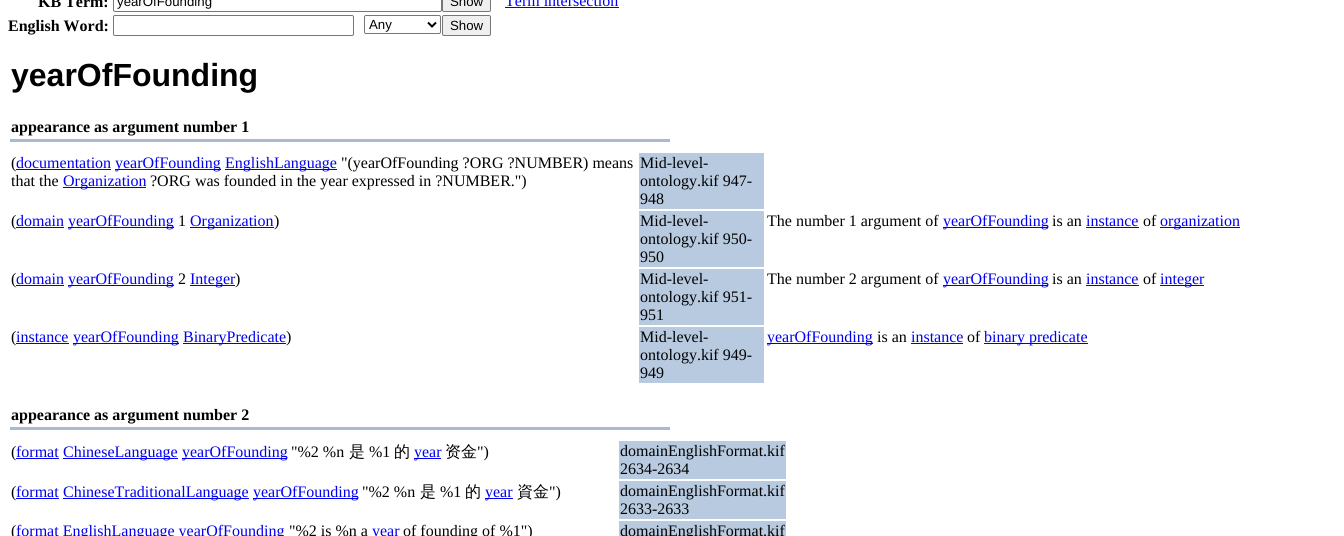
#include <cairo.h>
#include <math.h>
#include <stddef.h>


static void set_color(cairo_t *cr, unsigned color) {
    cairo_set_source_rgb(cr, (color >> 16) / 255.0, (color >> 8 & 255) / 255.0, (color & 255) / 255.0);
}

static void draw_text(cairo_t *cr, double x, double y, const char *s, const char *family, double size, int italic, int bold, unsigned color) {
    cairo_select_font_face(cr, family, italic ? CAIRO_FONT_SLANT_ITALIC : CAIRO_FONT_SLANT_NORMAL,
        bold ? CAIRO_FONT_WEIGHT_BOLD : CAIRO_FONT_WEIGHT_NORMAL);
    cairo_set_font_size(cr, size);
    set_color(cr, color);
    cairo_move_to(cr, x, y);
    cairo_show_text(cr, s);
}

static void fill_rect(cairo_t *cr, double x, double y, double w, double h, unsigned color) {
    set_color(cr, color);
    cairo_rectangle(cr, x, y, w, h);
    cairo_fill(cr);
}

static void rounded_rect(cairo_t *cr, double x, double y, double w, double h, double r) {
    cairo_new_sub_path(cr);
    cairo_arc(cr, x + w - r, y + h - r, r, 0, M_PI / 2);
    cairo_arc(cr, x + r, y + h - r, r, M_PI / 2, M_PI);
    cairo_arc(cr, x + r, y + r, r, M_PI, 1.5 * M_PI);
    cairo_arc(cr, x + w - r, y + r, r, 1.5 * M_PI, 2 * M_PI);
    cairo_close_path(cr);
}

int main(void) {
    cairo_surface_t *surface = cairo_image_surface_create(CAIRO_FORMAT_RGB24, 1344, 536);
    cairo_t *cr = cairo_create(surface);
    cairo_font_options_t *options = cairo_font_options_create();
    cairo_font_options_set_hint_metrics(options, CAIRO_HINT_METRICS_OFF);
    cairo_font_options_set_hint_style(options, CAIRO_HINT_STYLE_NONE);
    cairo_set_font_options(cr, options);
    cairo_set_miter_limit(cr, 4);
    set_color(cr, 0xFFFFFF);
    cairo_paint(cr);
    draw_text(cr, 38, 7, "KB Term:", "Liberation Serif", 16, 0, 1, 0x000000);
    rounded_rect(cr, 113.5, -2.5, 328, 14, 1.5);
    set_color(cr, 0x767676);
    cairo_set_line_width(cr, 1);
    cairo_stroke(cr);
    draw_text(cr, 117, 6, "yearOfFounding", "Liberation Sans", 13.25, 0, 0, 0x000000);
    set_color(cr, 0xEFEFEF);
    rounded_rect(cr, 442.5, -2.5, 48, 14, 1.5);
    cairo_fill_preserve(cr);
    set_color(cr, 0x767676);
    cairo_stroke(cr);
    draw_text(cr, 450, 6, "Show", "Liberation Sans", 13.25, 0, 0, 0x000000);
    draw_text(cr, 505, 6, "Term intersection", "Liberation Serif", 16, 0, 0, 0x0000EE);
    fill_rect(cr, 505, 7, 114, 1, 0x0000EE);
    draw_text(cr, 8, 31, "English Word:", "Liberation Serif", 16, 0, 1, 0x000000);
    rounded_rect(cr, 113.5, 15.5, 240, 20, 1.5);
    set_color(cr, 0x767676);
    cairo_stroke(cr);
    rounded_rect(cr, 364.5, 15.5, 76, 18, 1.5);
    cairo_stroke(cr);
    cairo_new_path(cr);
    cairo_move_to(cr, 428, 22.5);
    cairo_line_to(cr, 432, 26.5);
    cairo_line_to(cr, 436, 22.5);
    set_color(cr, 0x000000);
    cairo_set_line_width(cr, 2);
    cairo_stroke(cr);
    draw_text(cr, 369, 29, "Any", "Liberation Sans", 13.25, 0, 0, 0x000000);
    set_color(cr, 0xEFEFEF);
    rounded_rect(cr, 442.5, 15.5, 48, 20, 1.5);
    cairo_fill_preserve(cr);
    set_color(cr, 0x767676);
    cairo_set_line_width(cr, 1);
    cairo_stroke(cr);
    draw_text(cr, 450, 30, "Show", "Liberation Sans", 13.25, 0, 0, 0x000000);
    draw_text(cr, 11, 86, "yearOfFounding", "Liberation Sans", 32, 0, 1, 0x000000);
    draw_text(cr, 11, 132, "appearance as argument number 1", "Liberation Serif", 16, 0, 1, 0x000000);
    fill_rect(cr, 10, 139, 660, 3, 0xA8BACF);
    draw_text(cr, 11, 168, "(", "Liberation Serif", 16, 0, 0, 0x000000);
    draw_text(cr, 16, 168, "documentation", "Liberation Serif", 16, 0, 0, 0x0000EE);
    fill_rect(cr, 16, 169, 95, 1, 0x0000EE);
    fill_rect(cr, 115, 169, 106, 1, 0x0000EE);
    draw_text(cr, 115, 168, "yearOfFounding", "Liberation Serif", 16, 0, 0, 0x0000EE);
    fill_rect(cr, 225, 169, 112, 1, 0x0000EE);
    draw_text(cr, 225, 168, "EnglishLanguage", "Liberation Serif", 16, 0, 0, 0x0000EE);
    draw_text(cr, 341, 168, "\"(yearOfFounding ?ORG ?NUMBER) means", "Liberation Serif", 16, 0, 0, 0x000000);
    draw_text(cr, 11, 186, "that the", "Liberation Serif", 16, 0, 0, 0x000000);
    fill_rect(cr, 63, 187, 83, 1, 0x0000EE);
    draw_text(cr, 63, 186, "Organization", "Liberation Serif", 16, 0, 0, 0x0000EE);
    draw_text(cr, 150, 186, "?ORG was founded in the year expressed in ?NUMBER.\")", "Liberation Serif", 16, 0, 0, 0x000000);
    fill_rect(cr, 639, 153, 125, 56, 0xB8CADF);
    draw_text(cr, 640, 168, "Mid-level-", "Liberation Serif", 16, 0, 0, 0x000000);
    draw_text(cr, 640, 186, "ontology.kif 947-", "Liberation Serif", 16, 0, 0, 0x000000);
    draw_text(cr, 640, 204, "948", "Liberation Serif", 16, 0, 0, 0x000000);
    draw_text(cr, 11, 226, "(", "Liberation Serif", 16, 0, 0, 0x000000);
    draw_text(cr, 16, 226, "domain", "Liberation Serif", 16, 0, 0, 0x0000EE);
    fill_rect(cr, 16, 227, 48, 1, 0x0000EE);
    fill_rect(cr, 68, 227, 106, 1, 0x0000EE);
    draw_text(cr, 68, 226, "yearOfFounding", "Liberation Serif", 16, 0, 0, 0x0000EE);
    draw_text(cr, 178, 226, "1", "Liberation Serif", 16, 0, 0, 0x000000);
    fill_rect(cr, 190, 227, 84, 1, 0x0000EE);
    draw_text(cr, 190, 226, "Organization", "Liberation Serif", 16, 0, 0, 0x0000EE);
    draw_text(cr, 274, 226, ")", "Liberation Serif", 16, 0, 0, 0x000000);
    fill_rect(cr, 639, 211, 125, 56, 0xB8CADF);
    draw_text(cr, 640, 226, "Mid-level-", "Liberation Serif", 16, 0, 0, 0x000000);
    draw_text(cr, 640, 244, "ontology.kif 950-", "Liberation Serif", 16, 0, 0, 0x000000);
    draw_text(cr, 640, 262, "950", "Liberation Serif", 16, 0, 0, 0x000000);
    draw_text(cr, 767, 226, "The number 1 argument of", "Liberation Serif", 16, 0, 0, 0x000000);
    fill_rect(cr, 943, 227, 105, 1, 0x0000EE);
    draw_text(cr, 943, 226, "yearOfFounding", "Liberation Serif", 16, 0, 0, 0x0000EE);
    draw_text(cr, 1052, 226, "is an", "Liberation Serif", 16, 0, 0, 0x000000);
    draw_text(cr, 1086, 226, "instance", "Liberation Serif", 16, 0, 0, 0x0000EE);
    fill_rect(cr, 1086, 227, 53, 1, 0x0000EE);
    draw_text(cr, 1143, 226, "of", "Liberation Serif", 16, 0, 0, 0x000000);
    fill_rect(cr, 1160, 227, 80, 1, 0x0000EE);
    draw_text(cr, 1160, 226, "organization", "Liberation Serif", 16, 0, 0, 0x0000EE);
    draw_text(cr, 11, 284, "(", "Liberation Serif", 16, 0, 0, 0x000000);
    draw_text(cr, 16, 284, "domain", "Liberation Serif", 16, 0, 0, 0x0000EE);
    fill_rect(cr, 16, 285, 48, 1, 0x0000EE);
    fill_rect(cr, 68, 285, 106, 1, 0x0000EE);
    draw_text(cr, 68, 284, "yearOfFounding", "Liberation Serif", 16, 0, 0, 0x0000EE);
    draw_text(cr, 178, 284, "2", "Liberation Serif", 16, 0, 0, 0x000000);
    fill_rect(cr, 190, 285, 45, 1, 0x0000EE);
    draw_text(cr, 190, 284, "Integer", "Liberation Serif", 16, 0, 0, 0x0000EE);
    draw_text(cr, 235, 284, ")", "Liberation Serif", 16, 0, 0, 0x000000);
    fill_rect(cr, 639, 269, 125, 56, 0xB8CADF);
    draw_text(cr, 640, 284, "Mid-level-", "Liberation Serif", 16, 0, 0, 0x000000);
    draw_text(cr, 640, 302, "ontology.kif 951-", "Liberation Serif", 16, 0, 0, 0x000000);
    draw_text(cr, 640, 320, "951", "Liberation Serif", 16, 0, 0, 0x000000);
    draw_text(cr, 767, 284, "The number 2 argument of", "Liberation Serif", 16, 0, 0, 0x000000);
    fill_rect(cr, 943, 285, 105, 1, 0x0000EE);
    draw_text(cr, 943, 284, "yearOfFounding", "Liberation Serif", 16, 0, 0, 0x0000EE);
    draw_text(cr, 1052, 284, "is an", "Liberation Serif", 16, 0, 0, 0x000000);
    draw_text(cr, 1086, 284, "instance", "Liberation Serif", 16, 0, 0, 0x0000EE);
    fill_rect(cr, 1086, 285, 53, 1, 0x0000EE);
    draw_text(cr, 1143, 284, "of", "Liberation Serif", 16, 0, 0, 0x000000);
    fill_rect(cr, 1160, 285, 44, 1, 0x0000EE);
    draw_text(cr, 1160, 284, "integer", "Liberation Serif", 16, 0, 0, 0x0000EE);
    draw_text(cr, 11, 342, "(", "Liberation Serif", 16, 0, 0, 0x000000);
    draw_text(cr, 16, 342, "instance", "Liberation Serif", 16, 0, 0, 0x0000EE);
    fill_rect(cr, 16, 343, 53, 1, 0x0000EE);
    fill_rect(cr, 73, 343, 106, 1, 0x0000EE);
    draw_text(cr, 73, 342, "yearOfFounding", "Liberation Serif", 16, 0, 0, 0x0000EE);
    fill_rect(cr, 183, 343, 103, 1, 0x0000EE);
    draw_text(cr, 183, 342, "BinaryPredicate", "Liberation Serif", 16, 0, 0, 0x0000EE);
    draw_text(cr, 286, 342, ")", "Liberation Serif", 16, 0, 0, 0x000000);
    fill_rect(cr, 639, 327, 125, 56, 0xB8CADF);
    draw_text(cr, 640, 342, "Mid-level-", "Liberation Serif", 16, 0, 0, 0x000000);
    draw_text(cr, 640, 360, "ontology.kif 949-", "Liberation Serif", 16, 0, 0, 0x000000);
    draw_text(cr, 640, 378, "949", "Liberation Serif", 16, 0, 0, 0x000000);
    fill_rect(cr, 767, 343, 106, 1, 0x0000EE);
    draw_text(cr, 767, 342, "yearOfFounding", "Liberation Serif", 16, 0, 0, 0x0000EE);
    draw_text(cr, 877, 342, "is an", "Liberation Serif", 16, 0, 0, 0x000000);
    draw_text(cr, 911, 342, "instance", "Liberation Serif", 16, 0, 0, 0x0000EE);
    fill_rect(cr, 911, 343, 52, 1, 0x0000EE);
    draw_text(cr, 967, 342, "of", "Liberation Serif", 16, 0, 0, 0x000000);
    fill_rect(cr, 984, 343, 104, 1, 0x0000EE);
    draw_text(cr, 984, 342, "binary predicate", "Liberation Serif", 16, 0, 0, 0x0000EE);
    draw_text(cr, 11, 420, "appearance as argument number 2", "Liberation Serif", 16, 0, 1, 0x000000);
    fill_rect(cr, 10, 427, 660, 3, 0xA8BACF);
    draw_text(cr, 11, 457, "(", "Liberation Serif", 16, 0, 0, 0x000000);
    draw_text(cr, 16, 457, "format", "Liberation Serif", 16, 0, 0, 0x0000EE);
    fill_rect(cr, 16, 458, 43, 1, 0x0000EE);
    fill_rect(cr, 63, 458, 115, 1, 0x0000EE);
    draw_text(cr, 63, 457, "ChineseLanguage", "Liberation Serif", 16, 0, 0, 0x0000EE);
    fill_rect(cr, 182, 458, 105, 1, 0x0000EE);
    draw_text(cr, 182, 457, "yearOfFounding", "Liberation Serif", 16, 0, 0, 0x0000EE);
    draw_text(cr, 291, 457, "\"%2 %n", "Liberation Serif", 16, 0, 0, 0x000000);
    draw_text(cr, 349, 457, "是", "WenQuanYi Zen Hei Medium", 16, 0, 0, 0x000000);
    draw_text(cr, 369, 457, "%1", "Liberation Serif", 16, 0, 0, 0x000000);
    draw_text(cr, 394, 457, "的", "WenQuanYi Zen Hei Medium", 16, 0, 0, 0x000000);
    fill_rect(cr, 414, 458, 27, 1, 0x0000EE);
    draw_text(cr, 414, 457, "year", "Liberation Serif", 16, 0, 0, 0x0000EE);
    draw_text(cr, 445, 457, "资金", "WenQuanYi Zen Hei Medium", 16, 0, 0, 0x000000);
    draw_text(cr, 477, 457, "\")", "Liberation Serif", 16, 0, 0, 0x000000);
    fill_rect(cr, 619, 441, 167, 38, 0xB8CADF);
    draw_text(cr, 620, 456, "domainEnglishFormat.kif", "Liberation Serif", 16, 0, 0, 0x000000);
    draw_text(cr, 620, 474, "2634-2634", "Liberation Serif", 16, 0, 0, 0x000000);
    draw_text(cr, 11, 497, "(", "Liberation Serif", 16, 0, 0, 0x000000);
    draw_text(cr, 16, 497, "format", "Liberation Serif", 16, 0, 0, 0x0000EE);
    fill_rect(cr, 16, 498, 43, 1, 0x0000EE);
    fill_rect(cr, 63, 498, 186, 1, 0x0000EE);
    draw_text(cr, 63, 497, "ChineseTraditionalLanguage", "Liberation Serif", 16, 0, 0, 0x0000EE);
    fill_rect(cr, 253, 498, 105, 1, 0x0000EE);
    draw_text(cr, 253, 497, "yearOfFounding", "Liberation Serif", 16, 0, 0, 0x0000EE);
    draw_text(cr, 362, 497, "\"%2 %n", "Liberation Serif", 16, 0, 0, 0x000000);
    draw_text(cr, 420, 497, "是", "WenQuanYi Zen Hei Medium", 16, 0, 0, 0x000000);
    draw_text(cr, 440, 497, "%1", "Liberation Serif", 16, 0, 0, 0x000000);
    draw_text(cr, 465, 497, "的", "WenQuanYi Zen Hei Medium", 16, 0, 0, 0x000000);
    fill_rect(cr, 485, 498, 28, 1, 0x0000EE);
    draw_text(cr, 485, 497, "year", "Liberation Serif", 16, 0, 0, 0x0000EE);
    draw_text(cr, 517, 497, "資金", "WenQuanYi Zen Hei Medium", 16, 0, 0, 0x000000);
    draw_text(cr, 549, 497, "\")", "Liberation Serif", 16, 0, 0, 0x000000);
    fill_rect(cr, 619, 481, 167, 38, 0xB8CADF);
    draw_text(cr, 620, 496, "domainEnglishFormat.kif", "Liberation Serif", 16, 0, 0, 0x000000);
    draw_text(cr, 620, 514, "2633-2633", "Liberation Serif", 16, 0, 0, 0x000000);
    draw_text(cr, 11, 536, "(", "Liberation Serif", 16, 0, 0, 0x000000);
    draw_text(cr, 16, 536, "format EnglishLanguage yearOfFounding", "Liberation Serif", 16, 0, 0, 0x0000EE);
    draw_text(cr, 289, 536, "\"%2 is %n a", "Liberation Serif", 16, 0, 0, 0x000000);
    draw_text(cr, 372, 536, "year", "Liberation Serif", 16, 0, 0, 0x0000EE);
    draw_text(cr, 403, 536, "of founding of %1\")", "Liberation Serif", 16, 0, 0, 0x000000);
    fill_rect(cr, 619, 521, 167, 15, 0xB8CADF);
    draw_text(cr, 620, 536, "domainEnglishFormat.kif", "Liberation Serif", 16, 0, 0, 0x000000);
    cairo_surface_write_to_png(surface, "output.png");
    cairo_font_options_destroy(options);
    cairo_destroy(cr);
    cairo_surface_destroy(surface);
    return 0;
}
